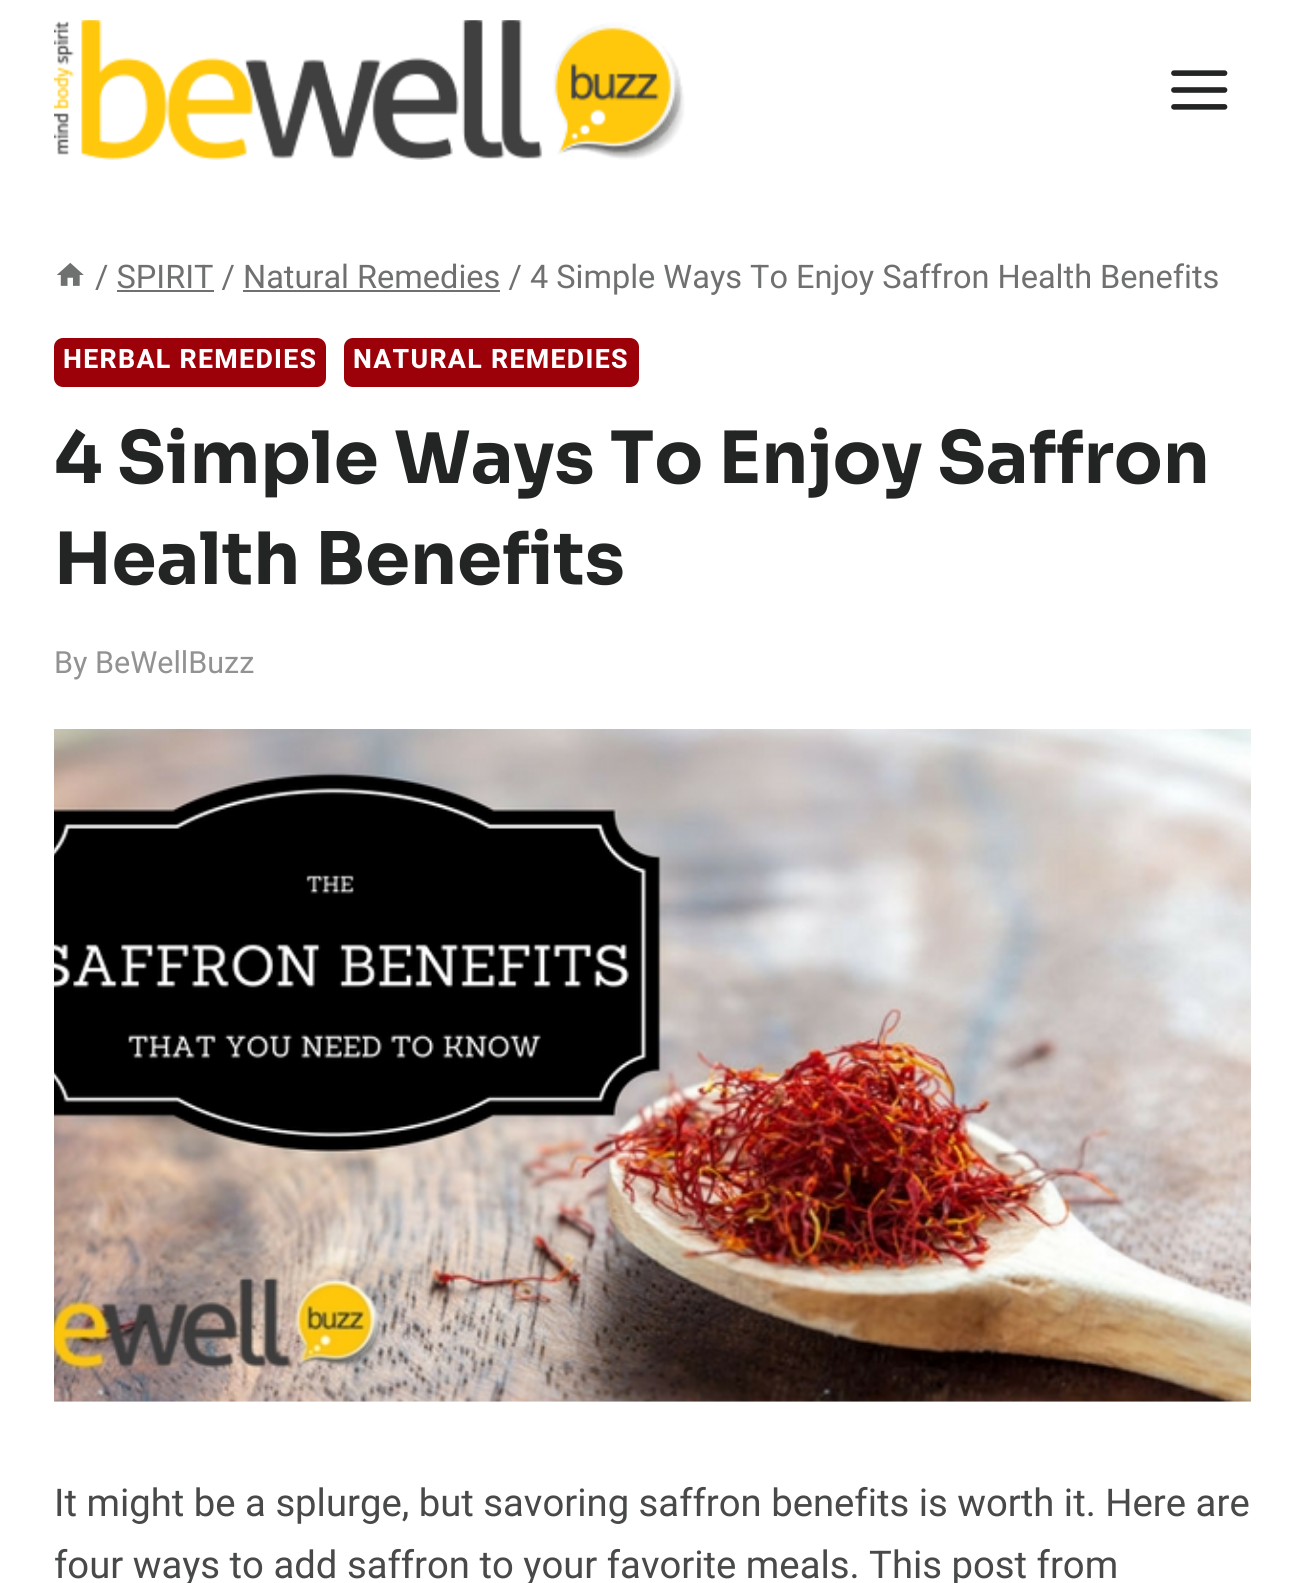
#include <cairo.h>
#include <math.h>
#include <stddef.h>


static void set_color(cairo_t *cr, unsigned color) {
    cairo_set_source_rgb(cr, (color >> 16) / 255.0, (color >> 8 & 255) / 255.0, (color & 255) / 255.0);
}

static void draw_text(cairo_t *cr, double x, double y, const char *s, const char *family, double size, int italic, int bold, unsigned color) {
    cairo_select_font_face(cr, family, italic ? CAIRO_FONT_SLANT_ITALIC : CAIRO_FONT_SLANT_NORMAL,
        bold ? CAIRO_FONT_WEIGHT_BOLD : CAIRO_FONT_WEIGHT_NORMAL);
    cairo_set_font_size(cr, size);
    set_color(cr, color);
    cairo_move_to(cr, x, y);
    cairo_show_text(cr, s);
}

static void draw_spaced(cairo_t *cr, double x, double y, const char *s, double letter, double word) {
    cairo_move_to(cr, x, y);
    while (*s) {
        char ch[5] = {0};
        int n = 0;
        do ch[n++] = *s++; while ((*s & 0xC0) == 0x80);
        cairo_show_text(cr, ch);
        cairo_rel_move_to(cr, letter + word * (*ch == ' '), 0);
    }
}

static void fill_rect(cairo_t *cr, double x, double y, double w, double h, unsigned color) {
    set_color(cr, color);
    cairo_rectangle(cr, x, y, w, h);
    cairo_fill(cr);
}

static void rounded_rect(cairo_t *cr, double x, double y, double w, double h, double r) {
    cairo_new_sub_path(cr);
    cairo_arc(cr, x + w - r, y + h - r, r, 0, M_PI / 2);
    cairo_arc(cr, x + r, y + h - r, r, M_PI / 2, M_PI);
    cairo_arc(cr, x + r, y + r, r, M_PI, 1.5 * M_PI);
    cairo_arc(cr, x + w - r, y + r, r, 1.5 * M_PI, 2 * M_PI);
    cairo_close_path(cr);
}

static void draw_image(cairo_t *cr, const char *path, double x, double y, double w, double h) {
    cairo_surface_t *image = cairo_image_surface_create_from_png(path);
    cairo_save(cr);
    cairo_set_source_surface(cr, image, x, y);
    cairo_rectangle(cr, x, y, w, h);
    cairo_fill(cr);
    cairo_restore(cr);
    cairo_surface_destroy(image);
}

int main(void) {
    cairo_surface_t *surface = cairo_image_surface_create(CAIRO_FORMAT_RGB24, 1305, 1583);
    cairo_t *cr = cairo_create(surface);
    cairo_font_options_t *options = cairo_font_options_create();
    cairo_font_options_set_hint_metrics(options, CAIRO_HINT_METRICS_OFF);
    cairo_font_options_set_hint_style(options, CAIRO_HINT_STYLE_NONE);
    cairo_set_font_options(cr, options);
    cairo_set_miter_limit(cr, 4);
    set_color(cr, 0xFFFFFF);
    cairo_paint(cr);
    draw_image(cr, "assets/img1.png", 54, 20, 631, 140);
    draw_image(cr, "assets/img2.png", 1171, 70, 57, 40);
    draw_image(cr, "assets/img3.png", 57, 262, 27, 24);
    draw_text(cr, 95, 288, "/ SPIRIT / Natural Remedies / 4 Simple Ways To Enjoy Saffron Health Benefits", "Heebo", 32.5, 0, 0, 0x6F7171);
    fill_rect(cr, 117, 290, 97, 2, 0x6F7171);
    fill_rect(cr, 243, 290, 257, 2, 0x6F7171);
    set_color(cr, 0x9C0008);
    rounded_rect(cr, 54, 338, 272, 49, 9);
    cairo_fill(cr);
    cairo_select_font_face(cr, "Heebo", CAIRO_FONT_SLANT_NORMAL, CAIRO_FONT_WEIGHT_BOLD);
    cairo_set_font_size(cr, 26.75);
    set_color(cr, 0xFFFFFF);
    draw_spaced(cr, 63, 368, "HERBAL REMEDIES", 1.3, 0);
    set_color(cr, 0x9C0008);
    rounded_rect(cr, 344, 338, 295, 49, 9);
    cairo_fill(cr);
    set_color(cr, 0xFFFFFF);
    draw_spaced(cr, 353, 368, "NATURAL REMEDIES", 1.3, 0);
    draw_text(cr, 54, 483, "4 Simple Ways To Enjoy Saffron", "Sora", 72, 0, 1, 0x232424);
    draw_text(cr, 54, 584, "Health Benefits", "Sora", 72, 0, 1, 0x232424);
    draw_text(cr, 54, 673, "By", "Heebo", 30.5, 0, 0, 0x919292);
    draw_text(cr, 95, 673, "BeWellBuzz", "Heebo", 30.5, 0, 0, 0x919292);
    draw_image(cr, "assets/img4.png", 54, 729, 1197, 673);
    draw_text(cr, 54, 1516, "It might be a splurge, but savoring saffron benefits is worth it. Here are", "Heebo", 38.25, 0, 0, 0x484949);
    draw_text(cr, 54, 1578, "four ways to add saffron to your favorite meals. This post from", "Heebo", 38.25, 0, 0, 0x484949);
    cairo_surface_write_to_png(surface, "output.png");
    cairo_font_options_destroy(options);
    cairo_destroy(cr);
    cairo_surface_destroy(surface);
    return 0;
}
